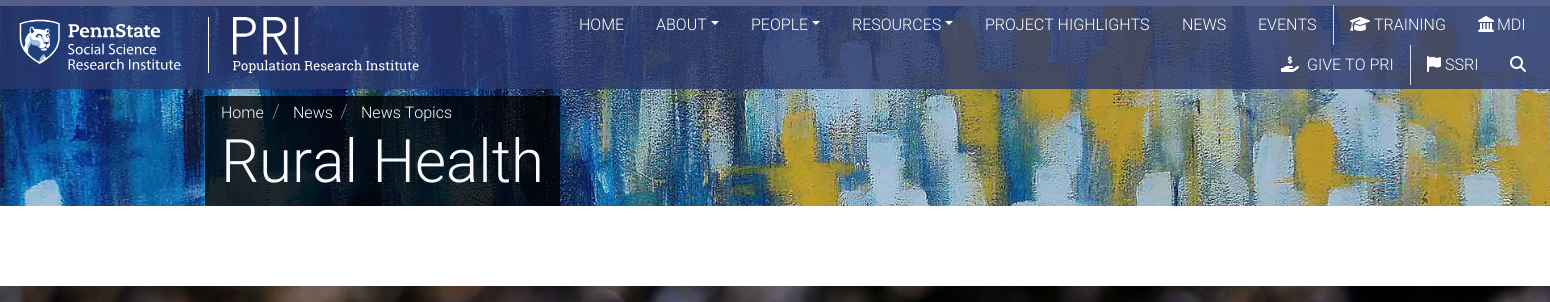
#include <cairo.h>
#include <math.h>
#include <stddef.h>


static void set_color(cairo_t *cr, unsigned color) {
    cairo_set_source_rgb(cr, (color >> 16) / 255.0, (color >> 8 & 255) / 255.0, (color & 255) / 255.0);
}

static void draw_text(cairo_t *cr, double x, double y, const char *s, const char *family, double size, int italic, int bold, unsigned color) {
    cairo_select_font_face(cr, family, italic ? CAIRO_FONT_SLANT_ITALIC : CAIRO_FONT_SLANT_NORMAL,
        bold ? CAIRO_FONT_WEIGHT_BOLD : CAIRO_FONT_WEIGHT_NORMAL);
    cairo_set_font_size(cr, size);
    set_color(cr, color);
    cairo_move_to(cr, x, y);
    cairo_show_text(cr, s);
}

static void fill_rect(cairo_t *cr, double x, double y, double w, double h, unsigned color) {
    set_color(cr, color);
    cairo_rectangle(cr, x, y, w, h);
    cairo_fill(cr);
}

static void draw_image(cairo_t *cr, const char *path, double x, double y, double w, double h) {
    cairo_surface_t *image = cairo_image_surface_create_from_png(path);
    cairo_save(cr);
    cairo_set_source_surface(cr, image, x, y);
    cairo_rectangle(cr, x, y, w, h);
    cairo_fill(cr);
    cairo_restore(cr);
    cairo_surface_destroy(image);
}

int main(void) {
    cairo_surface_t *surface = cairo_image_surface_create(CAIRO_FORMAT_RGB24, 1550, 302);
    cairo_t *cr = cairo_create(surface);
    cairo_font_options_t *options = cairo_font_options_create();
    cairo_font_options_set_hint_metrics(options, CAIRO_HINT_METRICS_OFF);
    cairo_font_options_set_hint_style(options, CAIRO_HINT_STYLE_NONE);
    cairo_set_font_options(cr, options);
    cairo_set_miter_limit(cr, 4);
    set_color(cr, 0xFFFFFF);
    cairo_paint(cr);
    draw_image(cr, "assets/img8.png", 0, 6, 1550, 200);
    cairo_set_source_rgba(cr, 0.165, 0.216, 0.427, 0.8);
    cairo_rectangle(cr, 0, 0, 1550, 89);
    cairo_fill(cr);
    draw_image(cr, "assets/img1.png", 19, 19, 162, 51);
    fill_rect(cr, 208, 17, 1, 56, 0xF8F9FA);
    draw_image(cr, "assets/img2.png", 233, 17, 186, 56);
    draw_text(cr, 579, 30, "HOME", "Roboto Light", 16, 0, 0, 0xFFFFFF);
    draw_text(cr, 656, 30, "ABOUT", "Roboto Light", 16, 0, 0, 0xFFFFFF);
    cairo_new_path(cr);
    cairo_move_to(cr, 711, 21);
    cairo_line_to(cr, 719, 21);
    cairo_line_to(cr, 715, 25);
    cairo_close_path(cr);
    cairo_fill(cr);
    draw_text(cr, 751, 30, "PEOPLE", "Roboto Light", 16, 0, 0, 0xFFFFFF);
    cairo_new_path(cr);
    cairo_move_to(cr, 812, 21);
    cairo_line_to(cr, 820, 21);
    cairo_line_to(cr, 816, 25);
    cairo_close_path(cr);
    cairo_fill(cr);
    draw_text(cr, 852, 30, "RESOURCES", "Roboto Light", 16, 0, 0, 0xFFFFFF);
    cairo_new_path(cr);
    cairo_move_to(cr, 945, 21);
    cairo_line_to(cr, 953, 21);
    cairo_line_to(cr, 949, 25);
    cairo_close_path(cr);
    cairo_fill(cr);
    draw_text(cr, 985, 30, "PROJECT HIGHLIGHTS", "Roboto Light", 16, 0, 0, 0xFFFFFF);
    draw_text(cr, 1182, 30, "NEWS", "Roboto Light", 16, 0, 0, 0xFFFFFF);
    draw_text(cr, 1258, 30, "EVENTS", "Roboto Light", 16, 0, 0, 0xFFFFFF);
    fill_rect(cr, 1333, 5, 1, 40, 0xDEE2E6);
    draw_image(cr, "assets/img3.png", 1350, 17, 20, 14);
    draw_text(cr, 1374, 30, "TRAINING", "Roboto Light", 16, 0, 0, 0xFFFFFF);
    draw_image(cr, "assets/img4.png", 1478, 16, 16, 16);
    draw_text(cr, 1497, 30, "MDI", "Roboto Light", 16, 0, 0, 0xFFFFFF);
    draw_image(cr, "assets/img5.png", 1281, 56, 18, 16);
    draw_text(cr, 1307, 70, "GIVE TO PRI", "Roboto Light", 16, 0, 0, 0xFFFFFF);
    fill_rect(cr, 1410, 45, 1, 40, 0xDEE2E6);
    draw_image(cr, "assets/img6.png", 1427, 56, 14, 16);
    draw_text(cr, 1445, 70, "SSRI", "Roboto Light", 16, 0, 0, 0xFFFFFF);
    draw_image(cr, "assets/img7.png", 1510, 56, 16, 16);
    cairo_set_source_rgba(cr, 0, 0, 0, 0.8);
    cairo_rectangle(cr, 205, 96, 355, 110);
    cairo_fill(cr);
    draw_text(cr, 221, 118, "Home", "Roboto Light", 16, 0, 0, 0xF8F9FA);
    draw_text(cr, 272, 118, "/", "Roboto Light", 20, 0, 0, 0x6C757D);
    draw_text(cr, 293, 118, "News", "Roboto Light", 16, 0, 0, 0xF8F9FA);
    draw_text(cr, 340, 118, "/", "Roboto Light", 20, 0, 0, 0x6C757D);
    draw_text(cr, 361, 118, "News Topics", "Roboto Light", 16, 0, 0, 0xF8F9FA);
    draw_text(cr, 221, 182, "Rural Health", "Roboto Light", 60, 0, 0, 0xF8F9FA);
    draw_image(cr, "assets/img9.png", 0, 286, 1550, 16);
    cairo_surface_write_to_png(surface, "output.png");
    cairo_font_options_destroy(options);
    cairo_destroy(cr);
    cairo_surface_destroy(surface);
    return 0;
}
